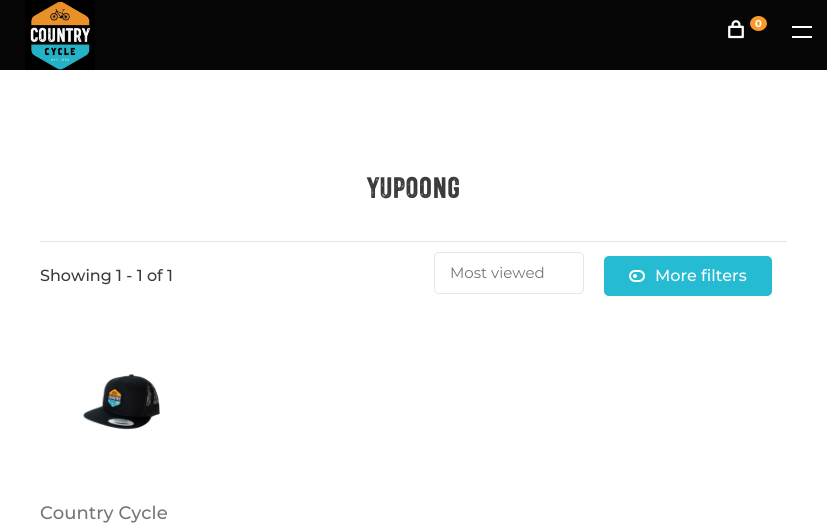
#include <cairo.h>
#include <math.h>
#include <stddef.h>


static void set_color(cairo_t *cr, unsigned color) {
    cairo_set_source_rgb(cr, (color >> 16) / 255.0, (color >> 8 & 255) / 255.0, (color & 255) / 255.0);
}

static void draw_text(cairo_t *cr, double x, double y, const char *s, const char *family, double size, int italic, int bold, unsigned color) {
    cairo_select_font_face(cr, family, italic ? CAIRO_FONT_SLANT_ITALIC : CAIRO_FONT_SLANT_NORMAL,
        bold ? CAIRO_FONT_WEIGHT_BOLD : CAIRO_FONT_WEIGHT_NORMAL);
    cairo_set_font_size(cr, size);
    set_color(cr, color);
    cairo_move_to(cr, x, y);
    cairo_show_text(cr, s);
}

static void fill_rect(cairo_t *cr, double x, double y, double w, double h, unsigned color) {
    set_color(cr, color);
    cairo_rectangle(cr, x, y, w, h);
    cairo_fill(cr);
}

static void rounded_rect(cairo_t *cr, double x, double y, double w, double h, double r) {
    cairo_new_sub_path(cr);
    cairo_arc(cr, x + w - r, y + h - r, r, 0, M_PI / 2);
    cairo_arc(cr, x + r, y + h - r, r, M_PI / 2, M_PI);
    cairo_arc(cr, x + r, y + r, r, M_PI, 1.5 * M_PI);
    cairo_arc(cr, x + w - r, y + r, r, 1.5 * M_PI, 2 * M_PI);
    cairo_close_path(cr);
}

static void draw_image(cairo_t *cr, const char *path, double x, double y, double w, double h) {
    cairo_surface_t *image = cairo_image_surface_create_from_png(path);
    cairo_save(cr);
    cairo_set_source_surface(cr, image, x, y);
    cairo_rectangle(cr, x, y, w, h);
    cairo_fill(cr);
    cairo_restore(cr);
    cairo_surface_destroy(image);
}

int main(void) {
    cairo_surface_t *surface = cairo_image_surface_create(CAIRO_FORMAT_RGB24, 827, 529);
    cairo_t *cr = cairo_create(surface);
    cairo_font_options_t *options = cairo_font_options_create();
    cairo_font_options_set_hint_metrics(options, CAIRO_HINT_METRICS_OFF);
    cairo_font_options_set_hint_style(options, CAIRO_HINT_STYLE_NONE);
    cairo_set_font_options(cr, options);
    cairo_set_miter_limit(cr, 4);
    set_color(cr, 0xFFFFFF);
    cairo_paint(cr);
    fill_rect(cr, 0, 0, 827, 70, 0x060606);
    draw_image(cr, "assets/img1.png", 25, 0, 70, 70);
    draw_image(cr, "assets/img2.png", 728, 20, 16, 19);
    set_color(cr, 0xF99A2B);
    cairo_new_path(cr);
    cairo_move_to(cr, 758.5, 16);
    cairo_curve_to(cr, 763, 16, 767, 19.5, 767, 23.5);
    cairo_curve_to(cr, 767, 27.5, 763, 31, 758.5, 31);
    cairo_curve_to(cr, 754, 31, 750, 27.5, 750, 23.5);
    cairo_curve_to(cr, 750, 19.5, 754, 16, 758.5, 16);
    cairo_close_path(cr);
    cairo_fill(cr);
    draw_text(cr, 755, 27, "0", "Montserrat", 10, 0, 1, 0xFFFFFF);
    fill_rect(cr, 792, 26, 20, 2, 0xFFFFFF);
    fill_rect(cr, 792, 36, 20, 2, 0xFFFFFF);
    draw_text(cr, 367, 198, "Yupoong", "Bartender", 30, 0, 0, 0x3B3B3B);
    fill_rect(cr, 40, 241, 747, 1, 0xE6E6E6);
    draw_text(cr, 40, 281, "Showing 1 - 1 of 1", "Montserrat Medium", 16, 0, 0, 0x3B3B3B);
    rounded_rect(cr, 434.5, 252.5, 149, 41, 4.5);
    set_color(cr, 0xE6E6E6);
    cairo_set_line_width(cr, 1);
    cairo_stroke(cr);
    draw_text(cr, 450, 278, "Most viewed", "Montserrat", 15, 0, 0, 0x787575);
    set_color(cr, 0x25BCD3);
    rounded_rect(cr, 604, 256, 168, 40, 5);
    cairo_fill(cr);
    draw_image(cr, "assets/img3.png", 629, 270, 16, 12);
    draw_text(cr, 655, 281, "More filters", "Montserrat Medium", 16, 0, 0, 0xFFFFFF);
    draw_image(cr, "assets/img4.png", 83, 374, 77, 56);
    draw_text(cr, 40, 519, "Country Cycle", "Montserrat Medium", 18, 0, 0, 0x787575);
    cairo_surface_write_to_png(surface, "output.png");
    cairo_font_options_destroy(options);
    cairo_destroy(cr);
    cairo_surface_destroy(surface);
    return 0;
}
